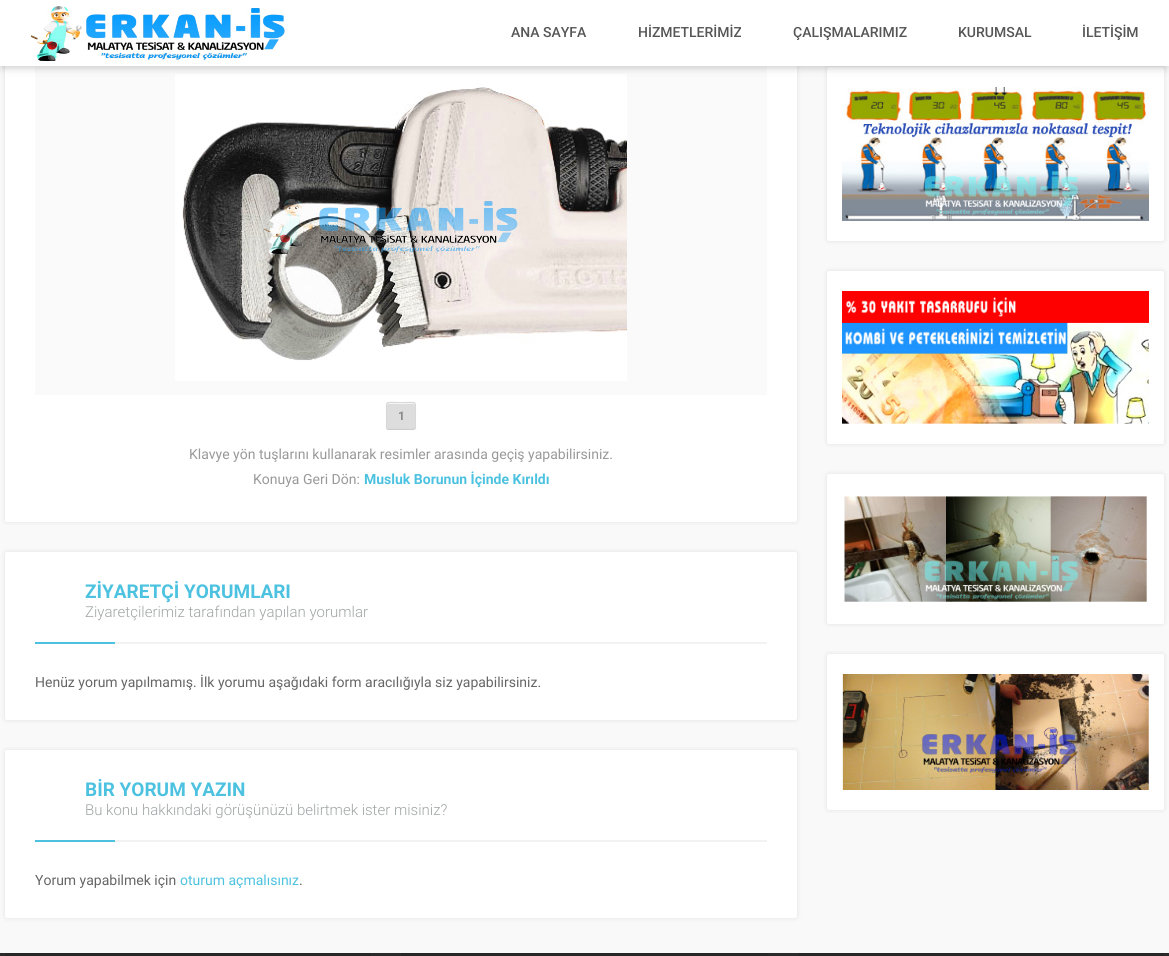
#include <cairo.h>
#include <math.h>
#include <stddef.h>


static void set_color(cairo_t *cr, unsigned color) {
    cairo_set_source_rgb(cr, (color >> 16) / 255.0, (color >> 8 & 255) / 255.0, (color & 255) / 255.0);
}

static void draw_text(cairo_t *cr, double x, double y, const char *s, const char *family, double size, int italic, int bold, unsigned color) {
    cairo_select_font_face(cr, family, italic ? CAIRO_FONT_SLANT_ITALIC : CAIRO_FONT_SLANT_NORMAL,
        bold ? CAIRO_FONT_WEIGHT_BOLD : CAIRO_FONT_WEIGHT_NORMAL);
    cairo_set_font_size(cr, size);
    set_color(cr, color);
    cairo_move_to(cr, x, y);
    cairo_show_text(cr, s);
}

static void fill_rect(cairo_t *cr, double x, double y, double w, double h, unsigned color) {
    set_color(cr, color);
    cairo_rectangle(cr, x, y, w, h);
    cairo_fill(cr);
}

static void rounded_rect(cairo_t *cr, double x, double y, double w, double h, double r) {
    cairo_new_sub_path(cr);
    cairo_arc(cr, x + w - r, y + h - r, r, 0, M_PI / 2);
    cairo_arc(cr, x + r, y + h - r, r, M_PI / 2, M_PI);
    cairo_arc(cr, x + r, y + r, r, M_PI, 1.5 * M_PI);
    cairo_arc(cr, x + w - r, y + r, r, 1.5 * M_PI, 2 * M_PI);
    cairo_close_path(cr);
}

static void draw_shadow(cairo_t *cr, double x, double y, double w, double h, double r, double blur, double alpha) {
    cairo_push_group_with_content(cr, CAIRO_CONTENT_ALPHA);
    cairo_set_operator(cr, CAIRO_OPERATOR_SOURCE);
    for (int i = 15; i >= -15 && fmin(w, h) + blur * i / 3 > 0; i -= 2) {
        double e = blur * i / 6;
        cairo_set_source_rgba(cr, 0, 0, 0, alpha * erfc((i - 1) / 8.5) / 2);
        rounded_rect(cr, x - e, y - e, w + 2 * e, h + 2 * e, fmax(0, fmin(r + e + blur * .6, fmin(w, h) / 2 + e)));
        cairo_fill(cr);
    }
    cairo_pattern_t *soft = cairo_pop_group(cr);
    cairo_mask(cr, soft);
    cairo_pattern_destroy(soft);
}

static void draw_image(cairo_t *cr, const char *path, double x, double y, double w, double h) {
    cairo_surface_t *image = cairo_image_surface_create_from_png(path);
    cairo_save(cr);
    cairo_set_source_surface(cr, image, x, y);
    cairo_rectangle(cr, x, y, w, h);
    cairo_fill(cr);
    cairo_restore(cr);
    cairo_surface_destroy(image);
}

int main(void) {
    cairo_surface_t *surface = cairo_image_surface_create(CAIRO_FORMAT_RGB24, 1169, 956);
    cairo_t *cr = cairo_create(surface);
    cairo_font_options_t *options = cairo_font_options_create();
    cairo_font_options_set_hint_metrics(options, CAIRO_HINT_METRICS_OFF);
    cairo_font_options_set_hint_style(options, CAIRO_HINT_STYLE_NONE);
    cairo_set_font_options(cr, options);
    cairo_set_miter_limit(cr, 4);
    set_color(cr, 0xF9F9F9);
    cairo_paint(cr);
    set_color(cr, 0x000000);
    draw_shadow(cr, 5, -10, 792, 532, 2, 2.5, 0.1);
    set_color(cr, 0xFFFFFF);
    rounded_rect(cr, 5, -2, 792, 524, 2);
    cairo_fill(cr);
    fill_rect(cr, 35, 66, 732, 329, 0xFAFAFA);
    draw_image(cr, "assets/img2.png", 175, 74, 452, 307);
    set_color(cr, 0x000000);
    draw_shadow(cr, 827, 67, 337, 174, 2, 2.5, 0.1);
    set_color(cr, 0xFFFFFF);
    rounded_rect(cr, 827, 67, 337, 174, 2);
    cairo_fill(cr);
    set_color(cr, 0x000000);
    draw_shadow(cr, 2, 6, 1165, 62, 0, 4, 0.2);
    fill_rect(cr, 0, 0, 1169, 66, 0xFFFFFF);
    draw_image(cr, "assets/img1.png", 31, 3, 254, 58);
    draw_text(cr, 511, 37, "ANA SAYFA", "Roboto Medium", 14, 0, 0, 0x565656);
    draw_text(cr, 638, 37, "HİZMETLERİMİZ", "Roboto Medium", 14, 0, 0, 0x565656);
    draw_text(cr, 793, 37, "ÇALIŞMALARIMIZ", "Roboto Medium", 14, 0, 0, 0x565656);
    draw_text(cr, 958, 37, "KURUMSAL", "Roboto Medium", 14, 0, 0, 0x565656);
    draw_text(cr, 1082, 37, "İLETİŞİM", "Roboto Medium", 14, 0, 0, 0x565656);
    set_color(cr, 0xDDDDDD);
    rounded_rect(cr, 386, 402, 30, 28, 3);
    cairo_fill(cr);
    set_color(cr, 0xD9D9D9);
    cairo_new_path(cr);
    cairo_move_to(cr, 388, 428);
    cairo_curve_to(cr, 387, 427, 387, 424.5, 387, 419);
    cairo_line_to(cr, 387, 427);
    cairo_curve_to(cr, 387, 428, 388, 429, 389, 429);
    cairo_line_to(cr, 413, 429);
    cairo_curve_to(cr, 414, 429, 415, 428, 415, 427);
    cairo_line_to(cr, 415, 419);
    cairo_curve_to(cr, 415, 421, 415.5, 426.5, 414, 428);
    cairo_curve_to(cr, 412.5, 429.5, 409, 428.5, 407, 428.5);
    cairo_line_to(cr, 400, 428);
    cairo_curve_to(cr, 397.5, 428, 389.5, 429, 388, 428);
    cairo_close_path(cr);
    cairo_fill(cr);
    set_color(cr, 0xF4F4F4);
    cairo_set_fill_rule(cr, CAIRO_FILL_RULE_EVEN_ODD);
    cairo_new_path(cr);
    cairo_move_to(cr, 389, 404);
    cairo_line_to(cr, 413, 404);
    cairo_line_to(cr, 415, 405);
    cairo_curve_to(cr, 415, 404, 414, 403, 413, 403);
    cairo_line_to(cr, 389, 403);
    cairo_curve_to(cr, 388, 403, 387, 404, 387, 405);
    cairo_line_to(cr, 387, 405.5);
    cairo_curve_to(cr, 387.5, 404.5, 388, 404, 389, 404);
    cairo_close_path(cr);
    cairo_move_to(cr, 415, 421);
    cairo_line_to(cr, 415, 428);
    cairo_close_path(cr);
    cairo_move_to(cr, 387, 428);
    cairo_line_to(cr, 387, 421);
    cairo_close_path(cr);
    cairo_fill(cr);
    cairo_new_path(cr);
    cairo_move_to(cr, 415, 429);
    cairo_curve_to(cr, 414.5, 429, 413.5, 429.5, 413, 429.5);
    cairo_line_to(cr, 389, 429.5);
    cairo_curve_to(cr, 388.5, 429.5, 387.5, 429, 387, 429);
    set_color(cr, 0xCCCCCC);
    cairo_set_line_width(cr, 1);
    cairo_stroke(cr);
    cairo_new_path(cr);
    cairo_move_to(cr, 387, 429);
    cairo_curve_to(cr, 386, 427.5, 386.5, 424.5, 386.5, 423.5);
    cairo_line_to(cr, 386.5, 416);
    cairo_curve_to(cr, 386.5, 399.5, 384, 402.5, 401, 402.5);
    cairo_curve_to(cr, 418, 402.5, 415.5, 399.5, 415.5, 416);
    cairo_line_to(cr, 415.5, 423.5);
    cairo_curve_to(cr, 415.5, 424.5, 416, 427.5, 415, 429);
    set_color(cr, 0xD8D8D8);
    cairo_stroke(cr);
    draw_text(cr, 398, 420, "1", "Roboto", 12, 0, 1, 0x888888);
    draw_text(cr, 189, 459, "Klavye yön tuşlarını kullanarak resimler arasında geçiş yapabilirsiniz.", "Roboto", 14, 0, 0, 0x999999);
    draw_text(cr, 253, 484, "Konuya Geri Dön:", "Roboto", 14, 0, 0, 0x999999);
    draw_text(cr, 364, 484, "Musluk Borunun İçinde Kırıldı", "Roboto", 14, 0, 1, 0x4CC2E0);
    set_color(cr, 0x000000);
    draw_shadow(cr, 5, 552, 792, 168, 2, 2.5, 0.1);
    set_color(cr, 0xFFFFFF);
    rounded_rect(cr, 5, 552, 792, 168, 2);
    cairo_fill(cr);
    draw_text(cr, 85, 598, "ZİYARETÇİ YORUMLARI", "Roboto", 19, 0, 1, 0x4CC2E0);
    draw_text(cr, 85, 617, "Ziyaretçilerimiz tarafından yapılan yorumlar", "Roboto Light", 15, 0, 0, 0x9FA4A4);
    fill_rect(cr, 35, 642, 80, 2, 0x4CC2E0);
    fill_rect(cr, 115, 642, 652, 2, 0xF2F2F2);
    draw_text(cr, 35, 687, "Henüz yorum yapılmamış. İlk yorumu aşağıdaki form aracılığıyla siz yapabilirsiniz.", "Roboto", 14, 0, 0, 0x666666);
    set_color(cr, 0x000000);
    draw_shadow(cr, 5, 750, 792, 168, 2, 2.5, 0.1);
    set_color(cr, 0xFFFFFF);
    rounded_rect(cr, 5, 750, 792, 168, 2);
    cairo_fill(cr);
    draw_text(cr, 85, 796, "BİR YORUM YAZIN", "Roboto", 19, 0, 1, 0x4CC2E0);
    draw_text(cr, 85, 815, "Bu konu hakkındaki görüşünüzü belirtmek ister misiniz?", "Roboto Light", 15, 0, 0, 0x9FA4A4);
    fill_rect(cr, 35, 840, 80, 2, 0x4CC2E0);
    fill_rect(cr, 115, 840, 652, 2, 0xF2F2F2);
    draw_text(cr, 35, 885, "Yorum yapabilmek için", "Roboto", 14, 0, 0, 0x666666);
    draw_text(cr, 180, 885, "oturum açmalısınız", "Roboto", 14, 0, 0, 0x4CC2E0);
    draw_text(cr, 299, 885, ".", "Roboto", 14, 0, 0, 0x666666);
    draw_image(cr, "assets/img3.png", 842, 87, 307, 134);
    set_color(cr, 0x000000);
    draw_shadow(cr, 827, 271, 337, 173, 2, 2.5, 0.1);
    set_color(cr, 0xFFFFFF);
    rounded_rect(cr, 827, 271, 337, 173, 2);
    cairo_fill(cr);
    draw_image(cr, "assets/img4.png", 842, 291, 307, 133);
    set_color(cr, 0x000000);
    draw_shadow(cr, 827, 474, 337, 150, 2, 2.5, 0.1);
    set_color(cr, 0xFFFFFF);
    rounded_rect(cr, 827, 474, 337, 150, 2);
    cairo_fill(cr);
    draw_image(cr, "assets/img5.png", 844, 496, 303, 106);
    set_color(cr, 0x000000);
    draw_shadow(cr, 827, 654, 337, 156, 2, 2.5, 0.1);
    set_color(cr, 0xFFFFFF);
    rounded_rect(cr, 827, 654, 337, 156, 2);
    cairo_fill(cr);
    draw_image(cr, "assets/img6.png", 842, 674, 307, 116);
    fill_rect(cr, 0, 953, 1169, 3, 0x2B2B2B);
    fill_rect(cr, 5, 953, 366, 3, 0x272727);
    fill_rect(cr, 401, 953, 367, 3, 0x272727);
    fill_rect(cr, 798, 953, 366, 3, 0x272727);
    cairo_surface_write_to_png(surface, "output.png");
    cairo_font_options_destroy(options);
    cairo_destroy(cr);
    cairo_surface_destroy(surface);
    return 0;
}
